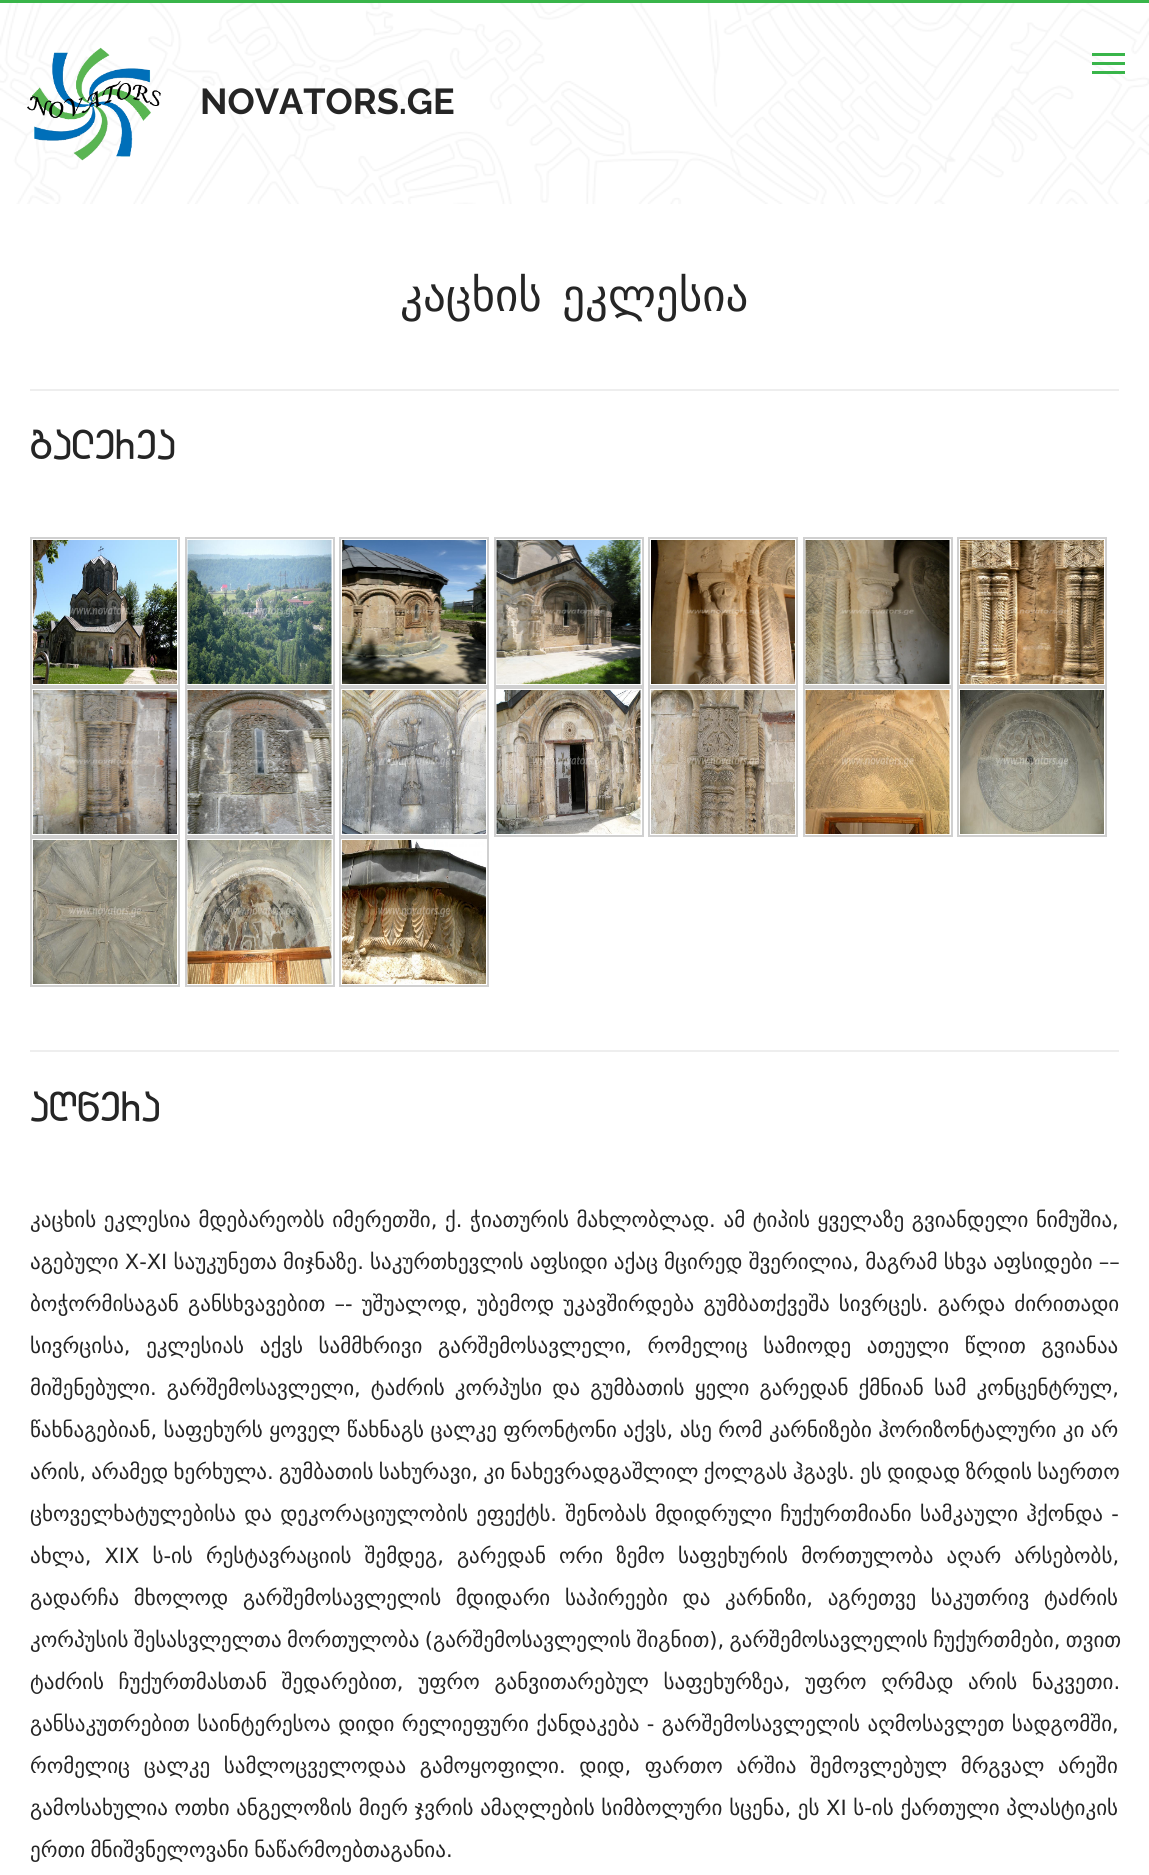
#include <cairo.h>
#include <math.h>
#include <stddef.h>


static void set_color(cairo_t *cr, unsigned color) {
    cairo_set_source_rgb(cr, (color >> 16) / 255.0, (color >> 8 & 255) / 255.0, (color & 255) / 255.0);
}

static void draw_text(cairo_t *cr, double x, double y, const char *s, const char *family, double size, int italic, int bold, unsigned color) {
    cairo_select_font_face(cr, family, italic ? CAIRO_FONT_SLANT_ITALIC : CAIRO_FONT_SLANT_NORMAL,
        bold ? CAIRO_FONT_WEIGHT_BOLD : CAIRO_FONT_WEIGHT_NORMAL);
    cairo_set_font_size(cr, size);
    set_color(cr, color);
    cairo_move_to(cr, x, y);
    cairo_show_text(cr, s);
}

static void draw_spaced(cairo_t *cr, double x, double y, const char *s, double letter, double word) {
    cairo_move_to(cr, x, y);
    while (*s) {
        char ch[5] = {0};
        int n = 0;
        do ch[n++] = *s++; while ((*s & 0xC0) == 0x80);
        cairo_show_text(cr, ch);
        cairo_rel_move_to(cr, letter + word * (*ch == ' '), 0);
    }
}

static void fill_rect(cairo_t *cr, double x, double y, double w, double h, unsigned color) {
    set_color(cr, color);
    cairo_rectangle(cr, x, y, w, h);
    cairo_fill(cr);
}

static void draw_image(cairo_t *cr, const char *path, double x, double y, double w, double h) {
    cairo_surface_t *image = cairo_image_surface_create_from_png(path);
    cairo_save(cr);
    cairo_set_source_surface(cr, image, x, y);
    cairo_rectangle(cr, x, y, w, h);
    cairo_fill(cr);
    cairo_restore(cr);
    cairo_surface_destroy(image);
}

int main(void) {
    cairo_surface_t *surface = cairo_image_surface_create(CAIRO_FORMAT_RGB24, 1149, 1875);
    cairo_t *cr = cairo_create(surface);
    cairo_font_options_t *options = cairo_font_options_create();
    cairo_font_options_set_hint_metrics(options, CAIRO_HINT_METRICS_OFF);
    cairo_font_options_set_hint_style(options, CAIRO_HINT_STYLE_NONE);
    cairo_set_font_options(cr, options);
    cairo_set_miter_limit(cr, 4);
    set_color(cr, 0xFFFFFF);
    cairo_paint(cr);
    draw_image(cr, "assets/img1.png", 0, 3, 1149, 201);
    fill_rect(cr, 0, 0, 1149, 3, 0x39B54A);
    fill_rect(cr, 1092, 53, 33, 3, 0x39B54A);
    fill_rect(cr, 1092, 62, 33, 3, 0x39B54A);
    fill_rect(cr, 1092, 71, 33, 3, 0x39B54A);
    draw_image(cr, "assets/img2.png", 27, 47, 134, 114);
    draw_text(cr, 200, 114, "NOVATORS.GE", "Raleway", 36, 0, 1, 0x252525);
    cairo_select_font_face(cr, "DejaVu Sans", CAIRO_FONT_SLANT_NORMAL, CAIRO_FONT_WEIGHT_NORMAL);
    cairo_set_font_size(cr, 45);
    draw_spaced(cr, 400, 311, "კაცხის ეკლესია", 0, 6);
    fill_rect(cr, 30, 389, 1089, 2, 0xEEEEEE);
    draw_text(cr, 30, 459, "galerea", "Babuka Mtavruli", 45, 0, 0, 0x252525);
    cairo_rectangle(cr, 31, 538, 148, 148);
    set_color(cr, 0xD0D0D0);
    cairo_stroke(cr);
    cairo_rectangle(cr, 186, 538, 148, 148);
    cairo_stroke(cr);
    cairo_rectangle(cr, 340, 538, 148, 148);
    cairo_stroke(cr);
    cairo_rectangle(cr, 495, 538, 148, 148);
    cairo_stroke(cr);
    cairo_rectangle(cr, 649, 538, 148, 148);
    cairo_stroke(cr);
    cairo_rectangle(cr, 804, 538, 148, 148);
    cairo_stroke(cr);
    cairo_rectangle(cr, 958, 538, 148, 148);
    cairo_stroke(cr);
    draw_image(cr, "assets/img3.png", 33, 540, 144, 144);
    draw_image(cr, "assets/img4.png", 187, 540, 145, 144);
    draw_image(cr, "assets/img5.png", 342, 540, 144, 144);
    draw_image(cr, "assets/img6.png", 496, 540, 145, 144);
    draw_image(cr, "assets/img7.png", 651, 540, 144, 144);
    draw_image(cr, "assets/img8.png", 805, 540, 145, 144);
    draw_image(cr, "assets/img9.png", 960, 540, 144, 144);
    cairo_rectangle(cr, 31, 688, 148, 148);
    cairo_stroke(cr);
    cairo_rectangle(cr, 186, 688, 148, 148);
    cairo_stroke(cr);
    cairo_rectangle(cr, 340, 688, 148, 148);
    cairo_stroke(cr);
    cairo_rectangle(cr, 495, 688, 148, 148);
    cairo_stroke(cr);
    cairo_rectangle(cr, 649, 688, 148, 148);
    cairo_stroke(cr);
    cairo_rectangle(cr, 804, 688, 148, 148);
    cairo_stroke(cr);
    cairo_rectangle(cr, 958, 688, 148, 148);
    cairo_stroke(cr);
    draw_image(cr, "assets/img10.png", 33, 690, 144, 144);
    draw_image(cr, "assets/img11.png", 187, 690, 145, 144);
    draw_image(cr, "assets/img12.png", 342, 690, 144, 144);
    draw_image(cr, "assets/img13.png", 496, 690, 145, 144);
    draw_image(cr, "assets/img14.png", 651, 690, 144, 144);
    draw_image(cr, "assets/img15.png", 805, 690, 145, 144);
    draw_image(cr, "assets/img16.png", 960, 690, 144, 144);
    cairo_rectangle(cr, 31, 838, 148, 148);
    cairo_stroke(cr);
    cairo_rectangle(cr, 186, 838, 148, 148);
    cairo_stroke(cr);
    cairo_rectangle(cr, 340, 838, 148, 148);
    cairo_stroke(cr);
    draw_image(cr, "assets/img17.png", 33, 840, 144, 144);
    draw_image(cr, "assets/img18.png", 187, 840, 145, 144);
    draw_image(cr, "assets/img19.png", 342, 840, 144, 144);
    fill_rect(cr, 30, 1050, 1089, 2, 0xEEEEEE);
    draw_text(cr, 30, 1121, "aRwera", "Babuka Mtavruli", 45, 0, 0, 0x252525);
    cairo_select_font_face(cr, "DejaVu Sans", CAIRO_FONT_SLANT_NORMAL, CAIRO_FONT_WEIGHT_NORMAL);
    cairo_set_font_size(cr, 21);
    draw_spaced(cr, 30, 1227, "კაცხის ეკლესია მდებარეობს იმერეთში, ქ. ჭიათურის მახლობლად. ამ ტიპის ყველაზე გვიანდელი ნიმუშია,", 0, 1);
    draw_spaced(cr, 30, 1269, "აგებული X-XI საუკუნეთა მიჯნაზე. საკურთხევლის აფსიდი აქაც მცირედ შვერილია, მაგრამ სხვა აფსიდები ––", 0, -0.5);
    draw_spaced(cr, 30, 1311, "ბოჭორმისაგან განსხვავებით –- უშუალოდ, უბემოდ უკავშირდება გუმბათქვეშა სივრცეს. გარდა ძირითადი", 0, 2.5);
    draw_spaced(cr, 30, 1353, "სივრცისა, ეკლესიას აქვს სამმხრივი გარშემოსავლელი, რომელიც სამიოდე ათეული წლით გვიანაა", 0, 9);
    draw_spaced(cr, 30, 1395, "მიშენებული. გარშემოსავლელი, ტაძრის კორპუსი და გუმბათის ყელი გარედან ქმნიან სამ კონცენტრულ,", 0, 3.4);
    draw_spaced(cr, 30, 1437, "წახნაგებიან, საფეხურს ყოველ წახნაგს ცალკე ფრონტონი აქვს, ასე რომ კარნიზები ჰორიზონტალური კი არ", 0, -0.25);
    draw_spaced(cr, 30, 1479, "არის, არამედ ხერხულა. გუმბათის სახურავი, კი ნახევრადგაშლილ ქოლგას ჰგავს. ეს დიდად ზრდის საერთო", 0, -1.25);
    draw_spaced(cr, 30, 1521, "ცხოველხატულებისა და დეკორაციულობის ეფექტს. შენობას მდიდრული ჩუქურთმიანი სამკაული ჰქონდა -", 0, 1.5);
    draw_spaced(cr, 30, 1563, "ახლა, XIX ს-ის რესტავრაციის შემდეგ, გარედან ორი ზემო საფეხურის მორთულობა აღარ არსებობს,", 0, 6.4);
    draw_spaced(cr, 30, 1605, "გადარჩა მხოლოდ გარშემოსავლელის მდიდარი საპირეები და კარნიზი, აგრეთვე საკუთრივ ტაძრის", 0, 8);
    draw_spaced(cr, 30, 1647, "კორპუსის შესასვლელთა მორთულობა (გარშემოსავლელის შიგნით), გარშემოსავლელის ჩუქურთმები, თვით", 0, -1.25);
    draw_spaced(cr, 30, 1689, "ტაძრის ჩუქურთმასთან შედარებით, უფრო განვითარებულ საფეხურზეა, უფრო ღრმად არის ნაკვეთი.", 0, 8);
    draw_spaced(cr, 30, 1731, "განსაკუთრებით საინტერესოა დიდი რელიეფური ქანდაკება - გარშემოსავლელის აღმოსავლეთ სადგომში,", 0, 0.75);
    draw_spaced(cr, 30, 1773, "რომელიც ცალკე სამლოცველოდაა გამოყოფილი. დიდ, ფართო არშია შემოვლებულ მრგვალ არეში", 0, 7);
    draw_text(cr, 30, 1815, "გამოსახულია ოთხი ანგელოზის მიერ ჯვრის ამაღლების სიმბოლური სცენა, ეს XI ს-ის ქართული პლასტიკის", "DejaVu Sans", 21, 0, 0, 0x252525);
    draw_spaced(cr, 30, 1857, "ერთი მნიშვნელოვანი ნაწარმოებთაგანია.", 0, -1.25);
    cairo_surface_write_to_png(surface, "output.png");
    cairo_font_options_destroy(options);
    cairo_destroy(cr);
    cairo_surface_destroy(surface);
    return 0;
}
